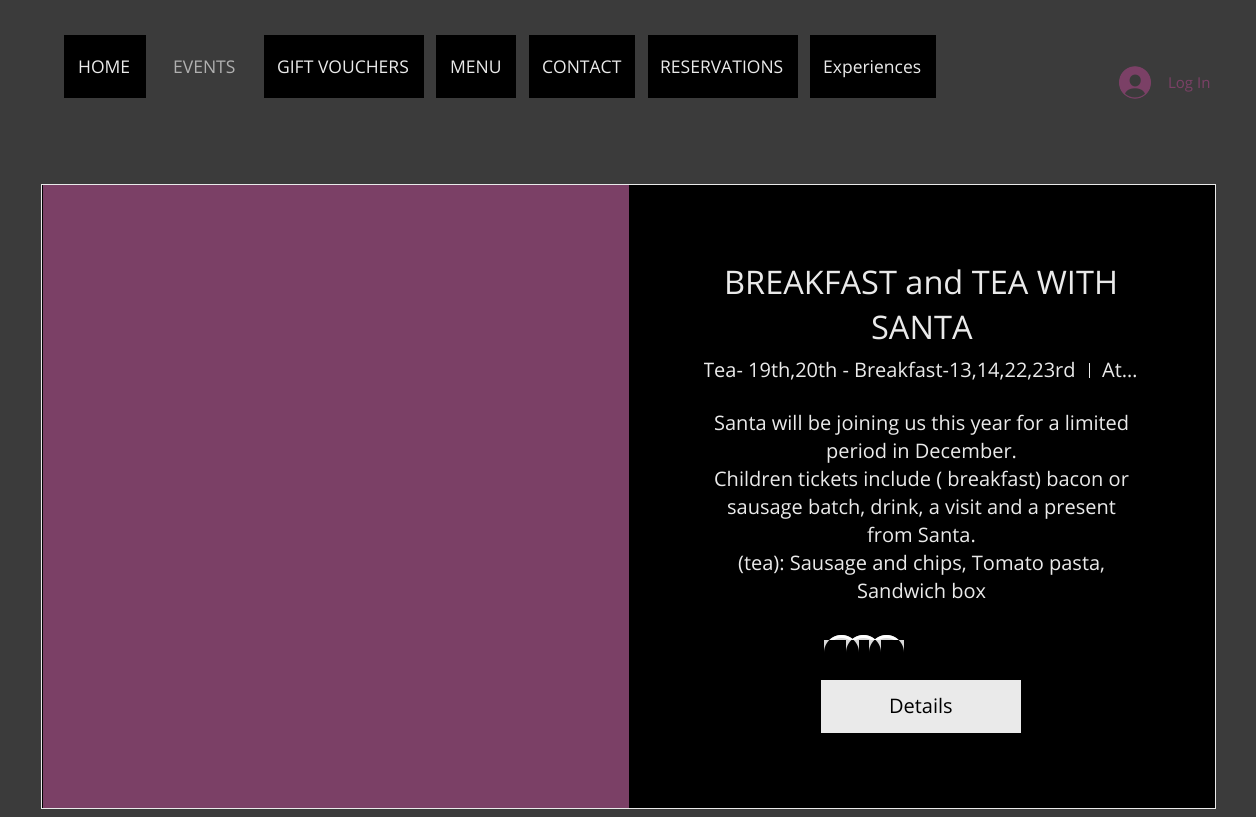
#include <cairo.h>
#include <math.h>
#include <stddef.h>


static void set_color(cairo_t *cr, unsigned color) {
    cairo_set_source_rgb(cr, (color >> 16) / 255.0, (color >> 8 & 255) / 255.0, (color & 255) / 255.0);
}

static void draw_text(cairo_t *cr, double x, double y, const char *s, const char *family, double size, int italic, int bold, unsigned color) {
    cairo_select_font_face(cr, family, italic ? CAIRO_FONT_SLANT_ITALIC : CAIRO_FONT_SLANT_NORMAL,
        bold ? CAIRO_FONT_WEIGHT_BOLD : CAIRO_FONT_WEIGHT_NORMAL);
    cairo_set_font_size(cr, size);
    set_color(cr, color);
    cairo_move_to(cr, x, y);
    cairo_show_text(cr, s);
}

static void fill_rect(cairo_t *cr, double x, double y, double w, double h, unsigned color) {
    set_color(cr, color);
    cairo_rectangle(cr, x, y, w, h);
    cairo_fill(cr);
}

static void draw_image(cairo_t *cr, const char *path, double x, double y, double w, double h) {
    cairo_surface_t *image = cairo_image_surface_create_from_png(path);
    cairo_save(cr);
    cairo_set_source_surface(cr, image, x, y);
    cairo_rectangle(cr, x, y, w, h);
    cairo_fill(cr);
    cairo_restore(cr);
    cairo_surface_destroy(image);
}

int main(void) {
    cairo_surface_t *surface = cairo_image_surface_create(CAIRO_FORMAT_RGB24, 1256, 817);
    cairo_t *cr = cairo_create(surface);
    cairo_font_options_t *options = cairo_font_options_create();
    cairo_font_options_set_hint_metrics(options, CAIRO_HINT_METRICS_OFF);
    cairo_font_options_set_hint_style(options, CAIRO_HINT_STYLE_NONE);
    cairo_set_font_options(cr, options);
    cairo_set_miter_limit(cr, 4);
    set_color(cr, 0x3B3B3B);
    cairo_paint(cr);
    fill_rect(cr, 64, 35, 82, 63, 0x000000);
    draw_text(cr, 78, 73, "HOME", "Open Sans", 17.5, 0, 0, 0xEAEAEA);
    draw_text(cr, 173, 73, "EVENTS", "Open Sans", 17.5, 0, 0, 0xB0B0B0);
    fill_rect(cr, 264, 35, 160, 63, 0x000000);
    draw_text(cr, 277, 73, "GIFT VOUCHERS", "Open Sans", 17.5, 0, 0, 0xEAEAEA);
    fill_rect(cr, 436, 35, 80, 63, 0x000000);
    draw_text(cr, 450, 73, "MENU", "Open Sans", 17.5, 0, 0, 0xEAEAEA);
    fill_rect(cr, 529, 35, 106, 63, 0x000000);
    draw_text(cr, 542, 73, "CONTACT", "Open Sans", 17.5, 0, 0, 0xEAEAEA);
    fill_rect(cr, 648, 35, 150, 63, 0x000000);
    draw_text(cr, 660, 73, "RESERVATIONS", "Open Sans", 17.5, 0, 0, 0xEAEAEA);
    fill_rect(cr, 810, 35, 126, 63, 0x000000);
    draw_text(cr, 823, 73, "Experiences", "Open Sans", 17.5, 0, 0, 0xEAEAEA);
    draw_image(cr, "assets/img1.png", 1119, 66, 32, 33);
    draw_text(cr, 1168, 88, "Log In", "Open Sans", 15, 0, 0, 0x7B4066);
    set_color(cr, 0x000000);
    cairo_rectangle(cr, 41.5, 184.5, 1174, 624);
    cairo_fill_preserve(cr);
    set_color(cr, 0xEAEAEA);
    cairo_set_line_width(cr, 1);
    cairo_stroke(cr);
    fill_rect(cr, 43, 185, 586, 623, 0x7B4066);
    draw_text(cr, 724, 294, "BREAKFAST and TEA WITH", "Open Sans", 32.5, 0, 0, 0xEAEAEA);
    draw_text(cr, 871, 339, "SANTA", "Open Sans", 32.5, 0, 0, 0xEAEAEA);
    cairo_save(cr);
    cairo_rectangle(cr, 704, 356, 372, 28);
    cairo_clip(cr);
    draw_text(cr, 703, 377, "Tea- 19th,20th -", "Open Sans", 20, 0, 0, 0xEAEAEA);
    cairo_restore(cr);
    draw_text(cr, 854, 377, "Breakfast-13,14,22,23rd", "Open Sans", 20, 0, 0, 0xEAEAEA);
    fill_rect(cr, 1089, 363, 1, 15, 0xEAEAEA);
    draw_text(cr, 1102, 377, "At…", "Open Sans", 20, 0, 0, 0xEAEAEA);
    draw_text(cr, 714, 430, "Santa will be joining us this year for a limited", "Open Sans", 20, 0, 0, 0xEAEAEA);
    draw_text(cr, 826, 458, "period in December.", "Open Sans", 20, 0, 0, 0xEAEAEA);
    draw_text(cr, 714, 486, "Children tickets include ( breakfast) bacon or", "Open Sans", 20, 0, 0, 0xEAEAEA);
    draw_text(cr, 727, 514, "sausage batch, drink, a visit and a present", "Open Sans", 20, 0, 0, 0xEAEAEA);
    draw_text(cr, 867, 542, "from Santa.", "Open Sans", 20, 0, 0, 0xEAEAEA);
    draw_text(cr, 738, 570, "(tea): Sausage and chips, Tomato pasta,", "Open Sans", 20, 0, 0, 0xEAEAEA);
    draw_text(cr, 857, 598, "Sandwich box", "Open Sans", 20, 0, 0, 0xEAEAEA);
    set_color(cr, 0xD8D8D8);
    cairo_new_path(cr);
    cairo_move_to(cr, 841.5, 635);
    cairo_curve_to(cr, 851, 635, 859, 643, 859, 652.5);
    cairo_line_to(cr, 859, 640);
    cairo_line_to(cr, 824, 640);
    cairo_line_to(cr, 824, 652.5);
    cairo_curve_to(cr, 824, 643, 832, 635, 841.5, 635);
    cairo_close_path(cr);
    cairo_fill(cr);
    cairo_save(cr);
    cairo_rectangle(cr, 824, 635, 35, 5);
    cairo_clip(cr);
    cairo_arc(cr, 841.5, 652.5, 16, 0, 2 * M_PI);
    set_color(cr, 0xFFFFFF);
    cairo_set_line_width(cr, 3);
    cairo_stroke(cr);
    cairo_restore(cr);
    cairo_new_path(cr);
    cairo_move_to(cr, 863.5, 635);
    cairo_curve_to(cr, 873, 635, 881, 643, 881, 652.5);
    cairo_line_to(cr, 881, 640);
    cairo_line_to(cr, 846, 640);
    cairo_line_to(cr, 846, 652.5);
    cairo_curve_to(cr, 846, 643, 854, 635, 863.5, 635);
    cairo_close_path(cr);
    cairo_fill(cr);
    cairo_save(cr);
    cairo_rectangle(cr, 846, 635, 35, 5);
    cairo_clip(cr);
    cairo_arc(cr, 863.5, 652.5, 16, 0, 2 * M_PI);
    set_color(cr, 0xFFFFFF);
    cairo_set_line_width(cr, 3);
    cairo_stroke(cr);
    cairo_restore(cr);
    cairo_new_path(cr);
    cairo_move_to(cr, 886.5, 635);
    cairo_curve_to(cr, 896, 635, 904, 643, 904, 652.5);
    cairo_line_to(cr, 904, 640);
    cairo_line_to(cr, 869, 640);
    cairo_line_to(cr, 869, 652.5);
    cairo_curve_to(cr, 869, 643, 877, 635, 886.5, 635);
    cairo_close_path(cr);
    cairo_fill(cr);
    cairo_save(cr);
    cairo_rectangle(cr, 869, 635, 35, 5);
    cairo_clip(cr);
    cairo_arc(cr, 886.5, 652.5, 16, 0, 2 * M_PI);
    set_color(cr, 0xFFFFFF);
    cairo_set_line_width(cr, 3);
    cairo_stroke(cr);
    cairo_restore(cr);
    fill_rect(cr, 821, 680, 200, 53, 0xEAEAEA);
    draw_text(cr, 889, 713, "Details", "Open Sans", 20, 0, 0, 0x000000);
    cairo_surface_write_to_png(surface, "output.png");
    cairo_font_options_destroy(options);
    cairo_destroy(cr);
    cairo_surface_destroy(surface);
    return 0;
}
